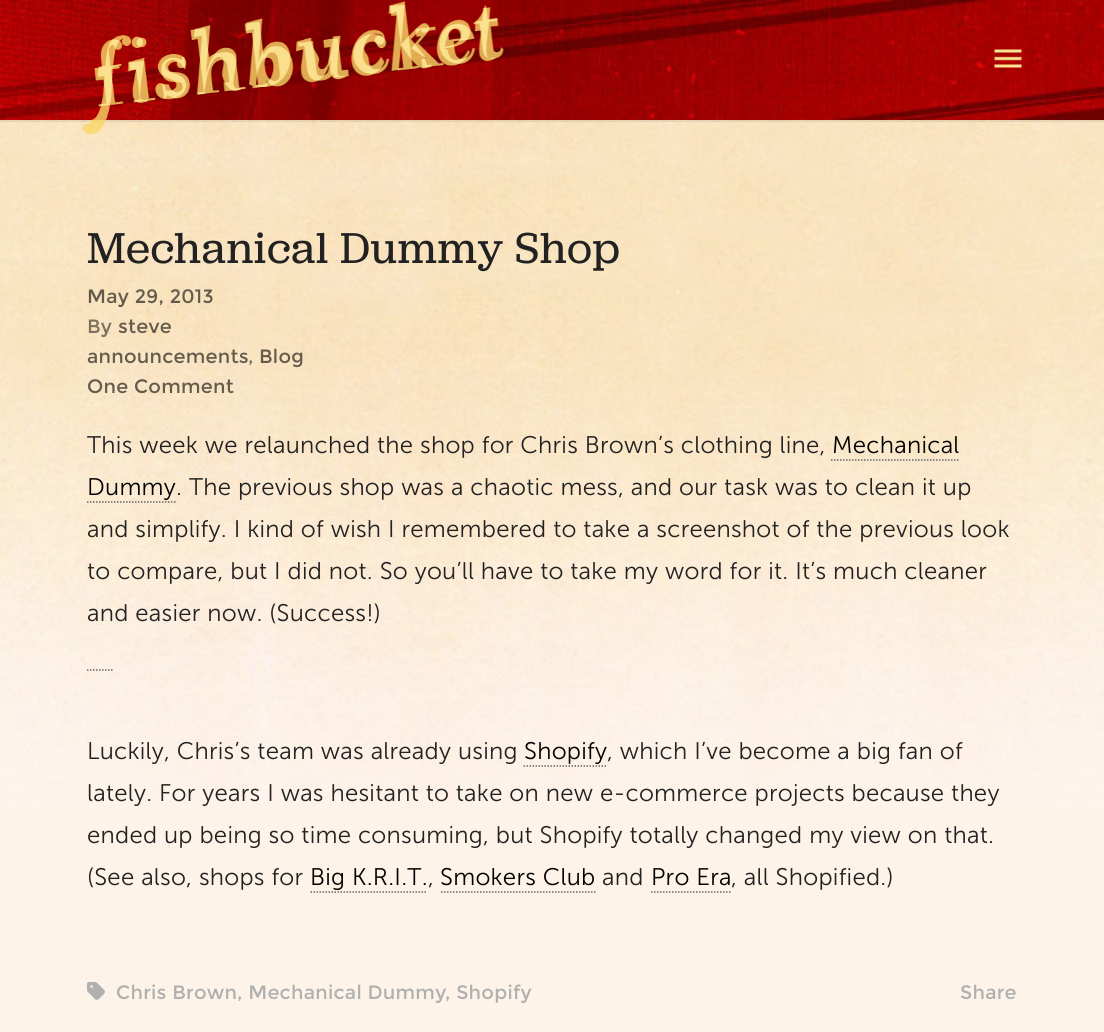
#include <cairo.h>
#include <math.h>
#include <stddef.h>


static void set_color(cairo_t *cr, unsigned color) {
    cairo_set_source_rgb(cr, (color >> 16) / 255.0, (color >> 8 & 255) / 255.0, (color & 255) / 255.0);
}

static void draw_spaced(cairo_t *cr, double x, double y, const char *s, double letter, double word) {
    cairo_move_to(cr, x, y);
    while (*s) {
        char ch[5] = {0};
        int n = 0;
        do ch[n++] = *s++; while ((*s & 0xC0) == 0x80);
        cairo_show_text(cr, ch);
        cairo_rel_move_to(cr, letter + word * (*ch == ' '), 0);
    }
}

static void draw_image(cairo_t *cr, const char *path, double x, double y, double w, double h) {
    cairo_surface_t *image = cairo_image_surface_create_from_png(path);
    cairo_save(cr);
    cairo_set_source_surface(cr, image, x, y);
    cairo_rectangle(cr, x, y, w, h);
    cairo_fill(cr);
    cairo_restore(cr);
    cairo_surface_destroy(image);
}

int main(void) {
    cairo_surface_t *surface = cairo_image_surface_create(CAIRO_FORMAT_RGB24, 1104, 1032);
    cairo_t *cr = cairo_create(surface);
    cairo_font_options_t *options = cairo_font_options_create();
    cairo_font_options_set_hint_metrics(options, CAIRO_HINT_METRICS_OFF);
    cairo_font_options_set_hint_style(options, CAIRO_HINT_STYLE_NONE);
    cairo_set_font_options(cr, options);
    cairo_set_miter_limit(cr, 4);
    set_color(cr, 0xFDF3E9);
    cairo_paint(cr);
    draw_image(cr, "assets/img1.png", 0, 120, 1104, 690);
    cairo_set_source_rgba(cr, 0, 0, 0, 0.08);
    cairo_rectangle(cr, 0, 120, 1104, 2);
    cairo_fill(cr);
    draw_image(cr, "assets/img2.png", 0, 0, 1104, 120);
    draw_image(cr, "assets/img3.png", 83, 1, 421, 134);
    draw_image(cr, "assets/img4.png", 994, 49, 28, 19);
    cairo_select_font_face(cr, "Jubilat", CAIRO_FONT_SLANT_NORMAL, CAIRO_FONT_WEIGHT_NORMAL);
    cairo_set_font_size(cr, 45);
    set_color(cr, 0x222222);
    draw_spaced(cr, 87, 263, "Mechanical Dummy Shop", 0.45, 0);
    cairo_select_font_face(cr, "Montserrat", CAIRO_FONT_SLANT_NORMAL, CAIRO_FONT_WEIGHT_NORMAL);
    cairo_set_font_size(cr, 19.5);
    set_color(cr, 0x645B4C);
    draw_spaced(cr, 87, 303, "May 29, 2013", 0.25, 0);
    set_color(cr, 0x7D7260);
    draw_spaced(cr, 87, 333, "By", 0.25, 0);
    set_color(cr, 0x645B4C);
    draw_spaced(cr, 118, 333, "steve", 0.25, 0);
    draw_spaced(cr, 87, 363, "announcements", 0.25, 0);
    set_color(cr, 0x7D7260);
    draw_spaced(cr, 248, 363, ",", 0.25, 0);
    set_color(cr, 0x645B4C);
    draw_spaced(cr, 259, 363, "Blog", 0.25, 0);
    draw_spaced(cr, 87, 393, "One Comment", 0.25, 0);
    cairo_select_font_face(cr, "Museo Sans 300 Light", CAIRO_FONT_SLANT_NORMAL, CAIRO_FONT_WEIGHT_NORMAL);
    cairo_set_font_size(cr, 24);
    set_color(cr, 0x222222);
    draw_spaced(cr, 87, 453, "This week we relaunched the shop for Chris Brown’s clothing line,", 0.25, 0);
    set_color(cr, 0x000000);
    draw_spaced(cr, 832, 453, "Mechanical", 0.25, 0);
    cairo_new_path(cr);
    cairo_move_to(cr, 831, 460);
    cairo_line_to(cr, 958.5, 460);
    set_color(cr, 0x666666);
    cairo_set_line_width(cr, 1.5);
    cairo_set_dash(cr, (double[]){1.5, 1.5}, 2, 0);
    cairo_stroke(cr);
    set_color(cr, 0x000000);
    draw_spaced(cr, 87, 495, "Dummy", 0.25, 0);
    cairo_new_path(cr);
    cairo_move_to(cr, 87, 502);
    cairo_line_to(cr, 175.5, 502);
    set_color(cr, 0x666666);
    cairo_stroke(cr);
    set_color(cr, 0x222222);
    draw_spaced(cr, 176, 495, ". The previous shop was a chaotic mess, and our task was to clean it up", 0.25, 0);
    draw_spaced(cr, 87, 537, "and simplify. I kind of wish I remembered to take a screenshot of the previous look", 0.25, 0);
    draw_spaced(cr, 87, 579, "to compare, but I did not. So you’ll have to take my word for it. It’s much cleaner", 0.25, 0);
    draw_spaced(cr, 87, 621, "and easier now. (Success!)", 0.25, 0);
    cairo_new_path(cr);
    cairo_move_to(cr, 87, 670);
    cairo_line_to(cr, 112.5, 670);
    set_color(cr, 0x666666);
    cairo_stroke(cr);
    set_color(cr, 0x222222);
    draw_spaced(cr, 87, 759, "Luckily, Chris’s team was already using", 0.25, 0);
    set_color(cr, 0x000000);
    draw_spaced(cr, 524, 759, "Shopify", 0.25, 0);
    cairo_new_path(cr);
    cairo_move_to(cr, 523.5, 766);
    cairo_line_to(cr, 607.5, 766);
    set_color(cr, 0x666666);
    cairo_stroke(cr);
    set_color(cr, 0x222222);
    draw_spaced(cr, 607, 759, ", which I’ve become a big fan of", 0.25, 0);
    draw_spaced(cr, 87, 801, "lately. For years I was hesitant to take on new e-commerce projects because they", 0.25, 0);
    draw_spaced(cr, 87, 843, "ended up being so time consuming, but Shopify totally changed my view on that.", 0.25, 0);
    draw_spaced(cr, 87, 885, "(See also, shops for", 0.25, 0);
    set_color(cr, 0x000000);
    draw_spaced(cr, 310, 885, "Big K.R.I.T.", 0.25, 0);
    cairo_new_path(cr);
    cairo_move_to(cr, 310.5, 892);
    cairo_line_to(cr, 427.5, 892);
    set_color(cr, 0x666666);
    cairo_stroke(cr);
    set_color(cr, 0x222222);
    draw_spaced(cr, 428, 885, ",", 0.25, 0);
    set_color(cr, 0x000000);
    draw_spaced(cr, 440, 885, "Smokers Club", 0.25, 0);
    cairo_new_path(cr);
    cairo_move_to(cr, 441, 892);
    cairo_line_to(cr, 595.5, 892);
    set_color(cr, 0x666666);
    cairo_stroke(cr);
    set_color(cr, 0x222222);
    draw_spaced(cr, 602, 885, "and", 0.25, 0);
    set_color(cr, 0x000000);
    draw_spaced(cr, 651, 885, "Pro Era", 0.25, 0);
    cairo_new_path(cr);
    cairo_move_to(cr, 651, 892);
    cairo_line_to(cr, 732, 892);
    set_color(cr, 0x666666);
    cairo_stroke(cr);
    set_color(cr, 0x222222);
    draw_spaced(cr, 731, 885, ", all Shopified.)", 0.25, 0);
    draw_image(cr, "assets/img5.png", 87, 981, 18, 19);
    cairo_select_font_face(cr, "Montserrat", CAIRO_FONT_SLANT_NORMAL, CAIRO_FONT_WEIGHT_NORMAL);
    cairo_set_font_size(cr, 19.5);
    set_color(cr, 0xB0B0B0);
    draw_spaced(cr, 116, 999, "Chris Brown", 0.25, 0);
    draw_spaced(cr, 237, 999, ", Mechanical Dummy", 0.25, 0);
    draw_spaced(cr, 445, 999, ", Shopify", 0.25, 0);
    draw_spaced(cr, 960, 999, "Share", 0.25, 0);
    cairo_surface_write_to_png(surface, "output.png");
    cairo_font_options_destroy(options);
    cairo_destroy(cr);
    cairo_surface_destroy(surface);
    return 0;
}
